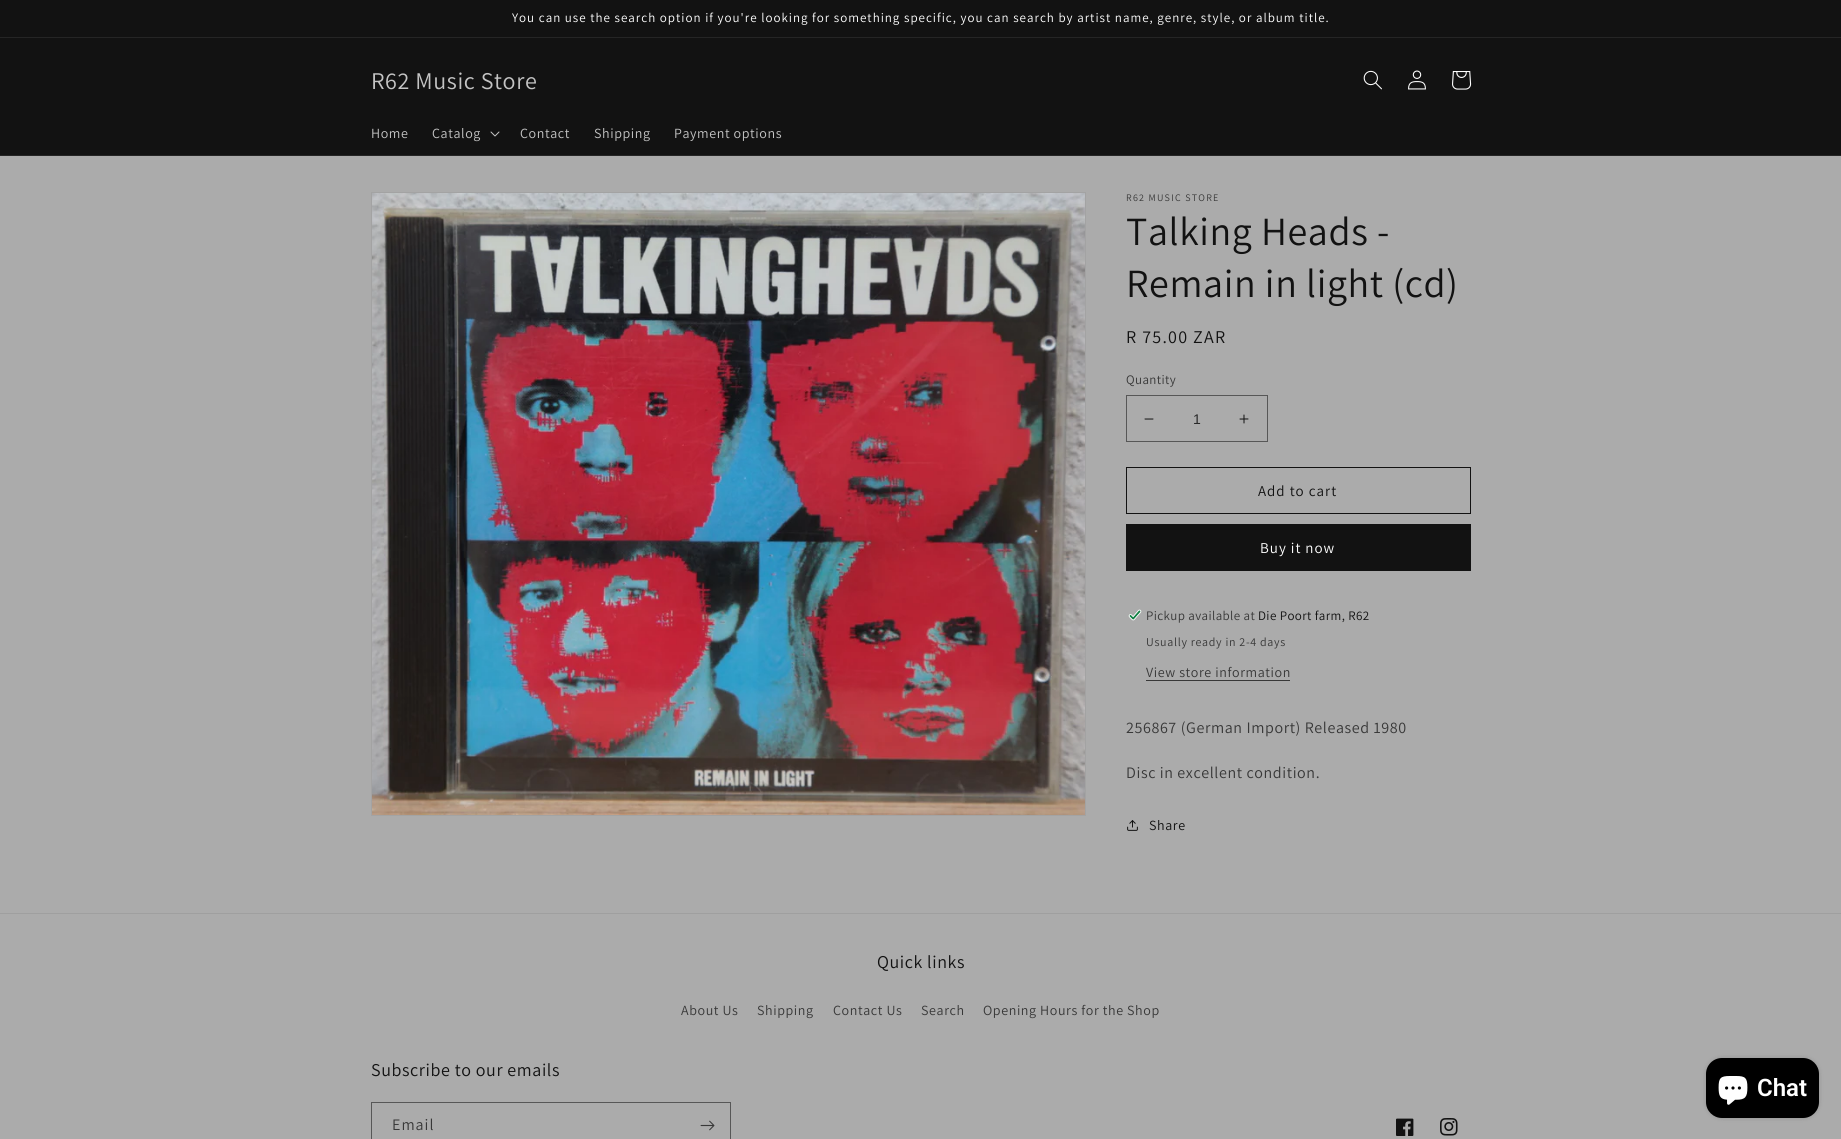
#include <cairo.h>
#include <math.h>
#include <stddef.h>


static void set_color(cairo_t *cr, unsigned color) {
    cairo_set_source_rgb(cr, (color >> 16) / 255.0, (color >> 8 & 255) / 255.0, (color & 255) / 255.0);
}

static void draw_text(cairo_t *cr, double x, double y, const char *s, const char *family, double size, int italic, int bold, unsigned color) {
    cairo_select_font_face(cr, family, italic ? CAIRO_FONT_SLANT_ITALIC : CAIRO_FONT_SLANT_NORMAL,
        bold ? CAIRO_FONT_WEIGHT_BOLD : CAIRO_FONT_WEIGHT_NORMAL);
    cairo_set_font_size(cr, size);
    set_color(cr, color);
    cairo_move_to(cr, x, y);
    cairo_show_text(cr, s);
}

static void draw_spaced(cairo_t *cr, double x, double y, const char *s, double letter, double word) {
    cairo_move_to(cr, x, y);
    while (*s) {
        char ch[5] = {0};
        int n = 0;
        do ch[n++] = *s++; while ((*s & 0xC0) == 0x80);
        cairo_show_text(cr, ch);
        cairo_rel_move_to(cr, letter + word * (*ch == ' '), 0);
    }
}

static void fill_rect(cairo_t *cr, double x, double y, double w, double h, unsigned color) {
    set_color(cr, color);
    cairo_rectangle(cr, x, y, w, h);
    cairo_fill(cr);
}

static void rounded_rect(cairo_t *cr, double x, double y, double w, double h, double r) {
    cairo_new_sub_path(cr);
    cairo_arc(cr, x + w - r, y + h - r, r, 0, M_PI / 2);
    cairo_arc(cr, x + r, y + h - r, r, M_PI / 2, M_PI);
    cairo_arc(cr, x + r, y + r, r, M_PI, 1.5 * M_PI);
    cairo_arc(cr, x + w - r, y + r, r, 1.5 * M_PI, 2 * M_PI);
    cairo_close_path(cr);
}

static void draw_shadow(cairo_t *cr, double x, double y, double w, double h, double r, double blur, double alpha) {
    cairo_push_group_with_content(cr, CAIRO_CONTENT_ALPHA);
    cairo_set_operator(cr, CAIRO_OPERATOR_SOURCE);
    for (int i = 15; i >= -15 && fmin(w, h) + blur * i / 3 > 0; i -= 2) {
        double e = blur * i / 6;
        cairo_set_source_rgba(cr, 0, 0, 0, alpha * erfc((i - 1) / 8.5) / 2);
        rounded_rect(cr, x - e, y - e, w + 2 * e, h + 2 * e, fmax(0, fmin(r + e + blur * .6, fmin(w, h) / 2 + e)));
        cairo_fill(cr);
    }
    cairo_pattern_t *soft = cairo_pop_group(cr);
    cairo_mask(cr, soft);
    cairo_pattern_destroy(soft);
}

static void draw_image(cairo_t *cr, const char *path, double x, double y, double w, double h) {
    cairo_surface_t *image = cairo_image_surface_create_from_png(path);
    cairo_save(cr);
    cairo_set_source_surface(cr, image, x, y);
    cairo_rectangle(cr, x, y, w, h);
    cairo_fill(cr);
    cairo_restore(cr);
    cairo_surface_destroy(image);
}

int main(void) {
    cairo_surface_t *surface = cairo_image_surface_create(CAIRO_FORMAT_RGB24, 1841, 1139);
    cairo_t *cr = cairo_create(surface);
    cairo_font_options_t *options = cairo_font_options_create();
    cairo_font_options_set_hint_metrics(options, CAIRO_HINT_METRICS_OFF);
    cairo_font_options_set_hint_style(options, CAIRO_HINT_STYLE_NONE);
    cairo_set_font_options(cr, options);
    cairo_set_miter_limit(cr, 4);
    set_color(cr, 0xABABAB);
    cairo_paint(cr);
    fill_rect(cr, 0, 0, 1841, 37, 0x121212);
    fill_rect(cr, 0, 37, 1841, 1, 0x252525);
    cairo_select_font_face(cr, "Assistant", CAIRO_FONT_SLANT_NORMAL, CAIRO_FONT_WEIGHT_NORMAL);
    cairo_set_font_size(cr, 13);
    set_color(cr, 0xFFFFFF);
    draw_spaced(cr, 512, 22, "You can use the search option if you're looking for something specific, you can search by artist name, genre, style, or album title.", 1, 0);
    fill_rect(cr, 0, 38, 1841, 117, 0x121212);
    fill_rect(cr, 0, 155, 1841, 1, 0x252525);
    cairo_set_font_size(cr, 24);
    set_color(cr, 0xC4C4C4);
    draw_spaced(cr, 371, 89, "R62 Music Store", 0.6, 0);
    draw_image(cr, "assets/img1.png", 1363, 70, 19, 20);
    draw_image(cr, "assets/img2.png", 1408, 70, 18, 20);
    draw_image(cr, "assets/img3.png", 1452, 71, 20, 19);
    cairo_set_font_size(cr, 14);
    draw_spaced(cr, 371, 138, "Home", 0.6, 0);
    draw_spaced(cr, 432, 138, "Catalog", 0.6, 0);
    draw_image(cr, "assets/img4.png", 490, 131, 10, 6);
    draw_spaced(cr, 520, 138, "Contact", 0.6, 0);
    draw_spaced(cr, 594, 138, "Shipping", 0.6, 0);
    draw_spaced(cr, 674, 138, "Payment options", 0.6, 0);
    cairo_rectangle(cr, 371.5, 192.5, 714, 623);
    set_color(cr, 0xA3A3A3);
    cairo_set_line_width(cr, 1);
    cairo_stroke(cr);
    draw_image(cr, "assets/img5.png", 372, 193, 713, 622);
    cairo_set_font_size(cr, 10);
    set_color(cr, 0x383838);
    draw_spaced(cr, 1126, 201, "R62 MUSIC STORE", 1.25, 0);
    cairo_set_font_size(cr, 40);
    set_color(cr, 0x121212);
    draw_spaced(cr, 1126, 245, "Talking Heads -", 0.6, 0);
    draw_spaced(cr, 1126, 297, "Remain in light (cd)", 0.6, 0);
    cairo_set_font_size(cr, 18);
    draw_spaced(cr, 1126, 343, "R 75.00 ZAR", 1.25, 0);
    cairo_set_font_size(cr, 13);
    set_color(cr, 0x383838);
    draw_spaced(cr, 1126, 384, "Quantity", 0.4, 0);
    draw_image(cr, "assets/img6.png", 1144, 418, 10, 2);
    draw_image(cr, "assets/img7.png", 1239, 414, 10, 10);
    cairo_rectangle(cr, 1126.5, 395.5, 141, 46);
    set_color(cr, 0x575757);
    cairo_stroke(cr);
    draw_text(cr, 1193, 424, "1", "Liberation Sans", 14, 0, 0, 0x292929);
    cairo_rectangle(cr, 1126.5, 467.5, 344, 46);
    set_color(cr, 0x121212);
    cairo_stroke(cr);
    cairo_select_font_face(cr, "Assistant", CAIRO_FONT_SLANT_NORMAL, CAIRO_FONT_WEIGHT_NORMAL);
    cairo_set_font_size(cr, 15);
    draw_spaced(cr, 1258, 496, "Add to cart", 1, 0);
    fill_rect(cr, 1126, 524, 345, 47, 0x121212);
    set_color(cr, 0xFFFFFF);
    draw_spaced(cr, 1260, 553, "Buy it now", 1, 0);
    draw_image(cr, "assets/img8.png", 1128, 609, 14, 12);
    cairo_set_font_size(cr, 13);
    set_color(cr, 0x383838);
    draw_spaced(cr, 1146, 620, "Pickup available at", 0.4, 0);
    set_color(cr, 0x121212);
    draw_spaced(cr, 1258, 620, "Die Poort farm, R62", 0.4, 0);
    cairo_set_font_size(cr, 12);
    set_color(cr, 0x383838);
    draw_spaced(cr, 1146, 646, "Usually ready in 2-4 days", 0.7, 0);
    cairo_set_font_size(cr, 14);
    draw_spaced(cr, 1146, 677, "View store information", 0.6, 0);
    fill_rect(cr, 1146, 680, 144, 1, 0x383838);
    cairo_set_font_size(cr, 16);
    draw_spaced(cr, 1126, 733, "256867 (German Import) Released 1980", 0.6, 0);
    draw_spaced(cr, 1126, 778, "Disc in excellent condition.", 0.6, 0);
    draw_image(cr, "assets/img9.png", 1127, 820, 11, 11);
    cairo_set_font_size(cr, 14);
    set_color(cr, 0x121212);
    draw_spaced(cr, 1149, 830, "Share", 0.6, 0);
    fill_rect(cr, 0, 913, 1841, 1, 0x9F9F9F);
    cairo_set_font_size(cr, 18);
    set_color(cr, 0x121212);
    draw_spaced(cr, 877, 968, "Quick links", 0.6, 0);
    cairo_set_font_size(cr, 14);
    set_color(cr, 0x383838);
    draw_spaced(cr, 681, 1015, "About Us", 0.6, 0);
    draw_spaced(cr, 757, 1015, "Shipping", 0.6, 0);
    draw_spaced(cr, 833, 1015, "Contact Us", 0.6, 0);
    draw_spaced(cr, 921, 1015, "Search", 0.6, 0);
    draw_spaced(cr, 983, 1015, "Opening Hours for the Shop", 0.6, 0);
    cairo_set_font_size(cr, 18);
    set_color(cr, 0x121212);
    draw_spaced(cr, 371, 1076, "Subscribe to our emails", 0.6, 0);
    cairo_rectangle(cr, 371.5, 1102.5, 359, 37);
    set_color(cr, 0x575757);
    cairo_stroke(cr);
    cairo_set_font_size(cr, 16);
    set_color(cr, 0x383838);
    draw_spaced(cr, 392, 1130, "Email", 1, 0);
    draw_image(cr, "assets/img10.png", 700, 1120, 15, 11);
    draw_image(cr, "assets/img11.png", 1396, 1118, 18, 18);
    draw_image(cr, "assets/img12.png", 1440, 1118, 18, 18);
    set_color(cr, 0x000000);
    draw_shadow(cr, 1706, 1058, 113, 60, 16, 2.5, 0.15);
    set_color(cr, 0x000000);
    rounded_rect(cr, 1706, 1058, 113, 60, 16);
    cairo_fill(cr);
    draw_image(cr, "assets/img13.png", 1718, 1076, 30, 29);
    draw_text(cr, 1757, 1096, "Chat", "Roboto SemiBold", 24, 0, 0, 0xFFFFFF);
    cairo_surface_write_to_png(surface, "output.png");
    cairo_font_options_destroy(options);
    cairo_destroy(cr);
    cairo_surface_destroy(surface);
    return 0;
}
